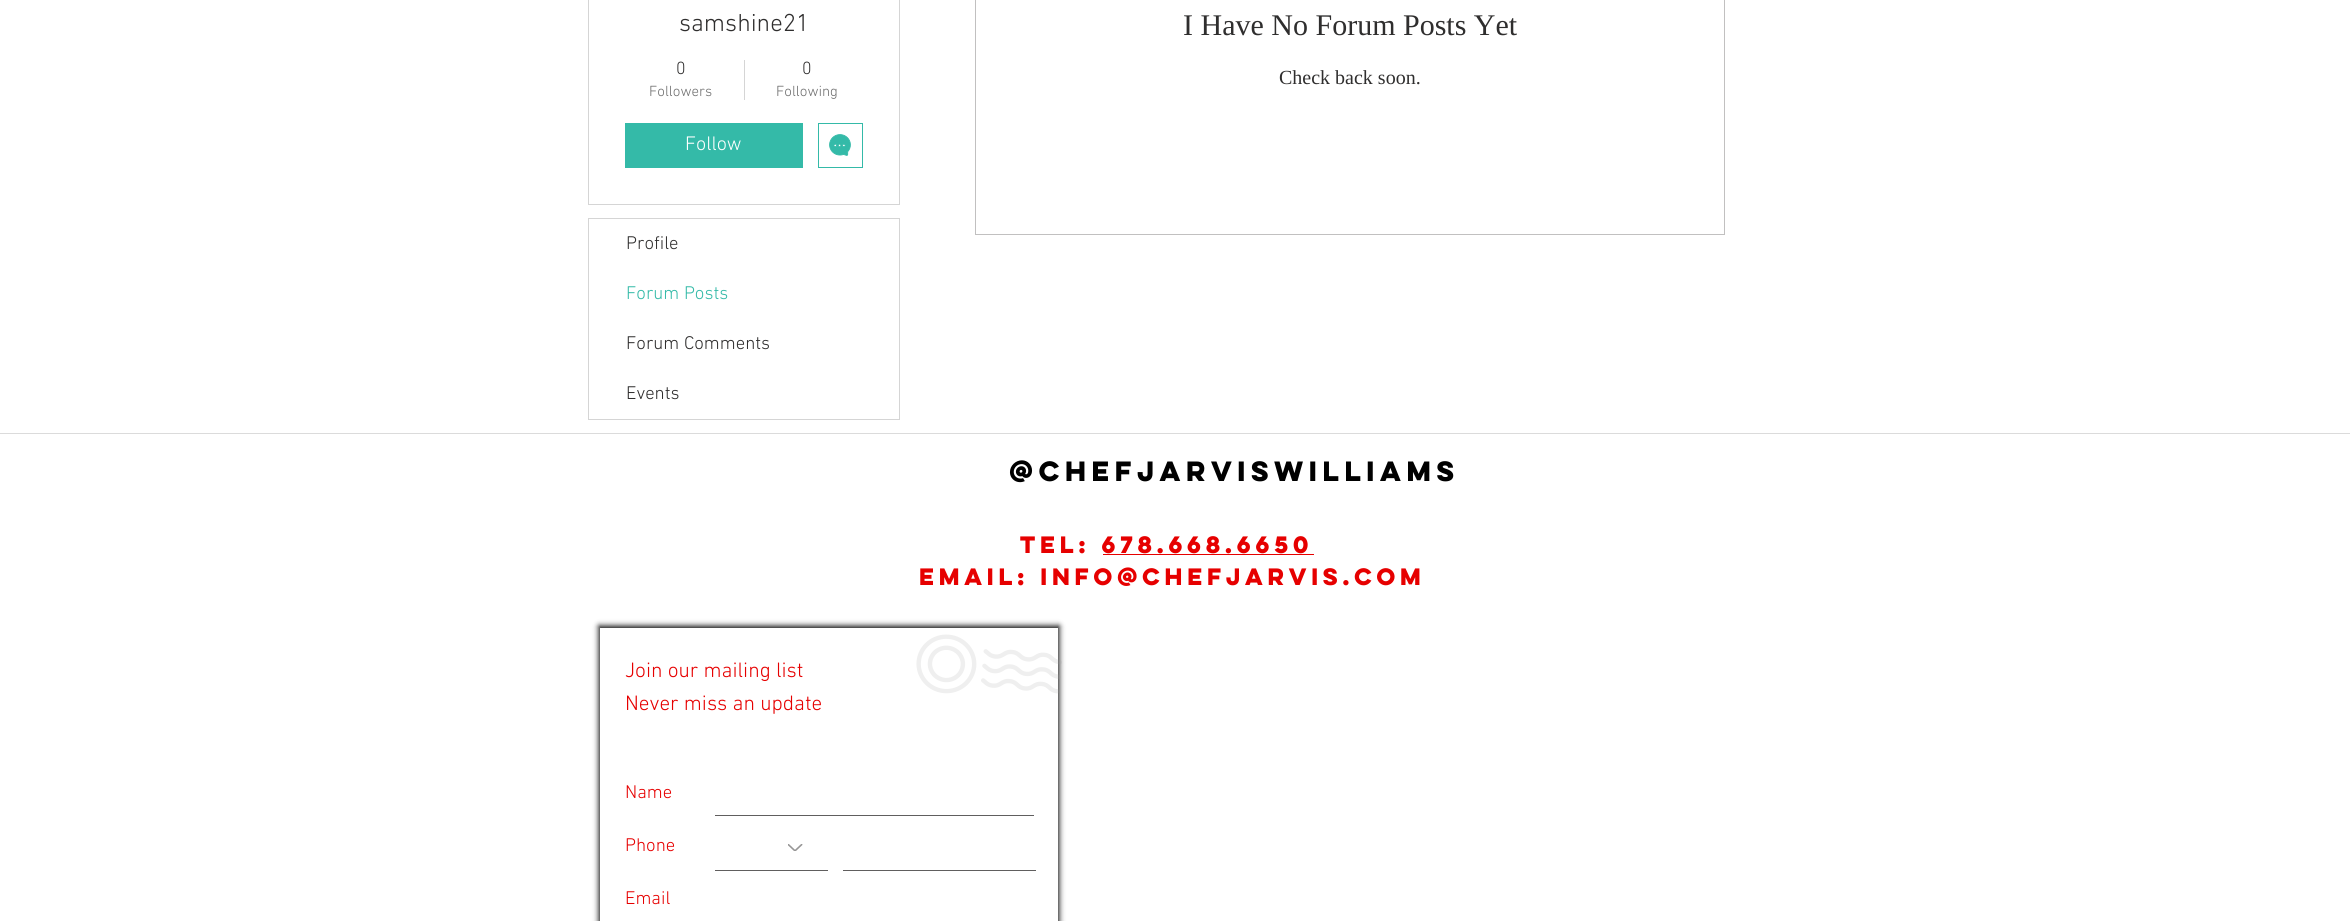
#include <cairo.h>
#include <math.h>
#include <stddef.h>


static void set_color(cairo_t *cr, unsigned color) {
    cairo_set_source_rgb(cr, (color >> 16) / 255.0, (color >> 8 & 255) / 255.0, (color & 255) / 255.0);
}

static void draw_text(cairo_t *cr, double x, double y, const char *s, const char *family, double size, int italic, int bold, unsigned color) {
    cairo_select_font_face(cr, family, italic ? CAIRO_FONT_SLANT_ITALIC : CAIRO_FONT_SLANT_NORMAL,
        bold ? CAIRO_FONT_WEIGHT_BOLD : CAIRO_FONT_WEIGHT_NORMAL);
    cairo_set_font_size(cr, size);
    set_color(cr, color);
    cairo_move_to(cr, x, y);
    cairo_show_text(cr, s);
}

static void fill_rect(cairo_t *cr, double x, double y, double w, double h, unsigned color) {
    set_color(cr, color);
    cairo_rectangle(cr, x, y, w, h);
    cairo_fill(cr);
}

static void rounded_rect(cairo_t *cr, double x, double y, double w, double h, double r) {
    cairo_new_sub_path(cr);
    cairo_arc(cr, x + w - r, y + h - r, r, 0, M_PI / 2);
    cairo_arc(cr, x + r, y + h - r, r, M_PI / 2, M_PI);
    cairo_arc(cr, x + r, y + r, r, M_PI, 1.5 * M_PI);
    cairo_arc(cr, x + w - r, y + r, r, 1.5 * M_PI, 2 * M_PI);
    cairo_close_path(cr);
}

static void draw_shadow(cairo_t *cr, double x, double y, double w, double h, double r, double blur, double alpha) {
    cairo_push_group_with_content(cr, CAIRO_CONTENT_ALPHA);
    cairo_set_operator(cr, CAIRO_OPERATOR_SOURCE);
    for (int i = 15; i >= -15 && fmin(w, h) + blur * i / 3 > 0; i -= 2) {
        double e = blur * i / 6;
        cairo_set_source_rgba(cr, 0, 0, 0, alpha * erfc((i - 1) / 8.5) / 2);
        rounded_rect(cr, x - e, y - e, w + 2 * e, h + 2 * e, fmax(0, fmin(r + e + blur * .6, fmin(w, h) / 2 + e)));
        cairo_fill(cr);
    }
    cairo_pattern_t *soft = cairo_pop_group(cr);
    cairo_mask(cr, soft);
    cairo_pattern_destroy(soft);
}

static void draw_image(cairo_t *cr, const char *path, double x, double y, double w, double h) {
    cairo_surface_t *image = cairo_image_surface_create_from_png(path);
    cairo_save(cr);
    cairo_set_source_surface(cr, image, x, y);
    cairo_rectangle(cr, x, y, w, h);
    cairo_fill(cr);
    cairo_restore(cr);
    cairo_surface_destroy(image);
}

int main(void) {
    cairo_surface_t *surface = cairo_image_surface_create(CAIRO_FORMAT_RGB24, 2350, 921);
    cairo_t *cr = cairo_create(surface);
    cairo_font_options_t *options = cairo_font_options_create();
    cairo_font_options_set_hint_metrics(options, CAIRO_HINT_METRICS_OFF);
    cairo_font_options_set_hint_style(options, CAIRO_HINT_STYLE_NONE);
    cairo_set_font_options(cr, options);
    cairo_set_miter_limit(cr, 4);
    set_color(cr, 0xFFFFFF);
    cairo_paint(cr);
    cairo_rectangle(cr, 588.5, -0.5, 311, 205);
    set_color(cr, 0xD5D5D5);
    cairo_set_line_width(cr, 1);
    cairo_stroke(cr);
    draw_text(cr, 679, 31, "samshine21", "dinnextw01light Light", 25, 0, 0, 0x2F2E2E);
    draw_text(cr, 676, 74, "0", "dinnextw01light Light", 18, 0, 0, 0x2F2E2E);
    draw_text(cr, 649, 96, "Followers", "dinnextw01light Light", 15, 0, 0, 0x6D6D6D);
    fill_rect(cr, 744, 60, 1, 40, 0xD5D5D5);
    draw_text(cr, 802, 74, "0", "dinnextw01light Light", 18, 0, 0, 0x2F2E2E);
    draw_text(cr, 776, 96, "Following", "dinnextw01light Light", 15, 0, 0, 0x6D6D6D);
    fill_rect(cr, 625, 123, 178, 45, 0x34BAA8);
    draw_text(cr, 685, 150, "Follow", "dinnextw01light Light", 20, 0, 0, 0xFFFFFF);
    cairo_rectangle(cr, 818.5, 123.5, 44, 44);
    set_color(cr, 0x34BAA8);
    cairo_stroke(cr);
    draw_image(cr, "assets/img1.png", 829, 134, 22, 22);
    cairo_rectangle(cr, 588.5, 218.5, 311, 201);
    set_color(cr, 0xD5D5D5);
    cairo_stroke(cr);
    draw_text(cr, 626, 249, "Profile", "dinnextw01light Light", 18.75, 0, 0, 0x2F2E2E);
    draw_text(cr, 626, 299, "Forum Posts", "dinnextw01light Light", 18.75, 0, 0, 0x34BAA8);
    draw_text(cr, 626, 349, "Forum Comments", "dinnextw01light Light", 18.75, 0, 0, 0x2F2E2E);
    draw_text(cr, 626, 399, "Events", "dinnextw01light Light", 18.75, 0, 0, 0x2F2E2E);
    cairo_rectangle(cr, 975.5, -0.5, 749, 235);
    set_color(cr, 0xC1C0C0);
    cairo_stroke(cr);
    draw_text(cr, 1183, 35, "I Have No Forum Posts Yet", "Liberation Serif", 30, 0, 0, 0x2F2E2E);
    draw_text(cr, 1279, 84, "Check back soon.", "Liberation Serif", 20, 0, 0, 0x2F2E2E);
    fill_rect(cr, 0, 433, 2350, 1, 0xDBDBDB);
    draw_text(cr, 1009, 481, "@ChefJarvisWilliams", "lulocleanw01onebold", 25, 0, 1, 0x000000);
    draw_text(cr, 1020, 553, "Tel: 678.668.6650", "lulocleanw01onebold", 21.25, 0, 1, 0xE60000);
    fill_rect(cr, 1103, 554, 211, 1, 0xE60000);
    draw_text(cr, 919, 585, "Email: info@chefjarvis.com", "lulocleanw01onebold", 21.25, 0, 1, 0xE60000);
    set_color(cr, 0x000000);
    draw_shadow(cr, 599, 626, 460, 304, 0, 3, 1);
    fill_rect(cr, 600, 628, 458, 293, 0xFFFFFF);
    draw_text(cr, 625, 677, "Join our mailing list", "dinnextw01light Light", 21.25, 0, 0, 0xE60000);
    draw_image(cr, "assets/img2.png", 916, 634, 146, 60);
    draw_text(cr, 625, 710, "Never miss an update", "dinnextw01light Light", 21.25, 0, 0, 0xE60000);
    draw_text(cr, 625, 798, "Name", "dinnextw01light Light", 18.75, 0, 0, 0xE60000);
    fill_rect(cr, 715, 815, 319, 1, 0x605E5E);
    draw_text(cr, 625, 851, "Phone", "dinnextw01light Light", 18.75, 0, 0, 0xE60000);
    draw_image(cr, "assets/img3.png", 788, 844, 15, 7);
    fill_rect(cr, 715, 870, 113, 1, 0x605E5E);
    fill_rect(cr, 843, 870, 193, 1, 0x605E5E);
    draw_text(cr, 625, 904, "Email", "dinnextw01light Light", 18.75, 0, 0, 0xE60000);
    cairo_surface_write_to_png(surface, "output.png");
    cairo_font_options_destroy(options);
    cairo_destroy(cr);
    cairo_surface_destroy(surface);
    return 0;
}
